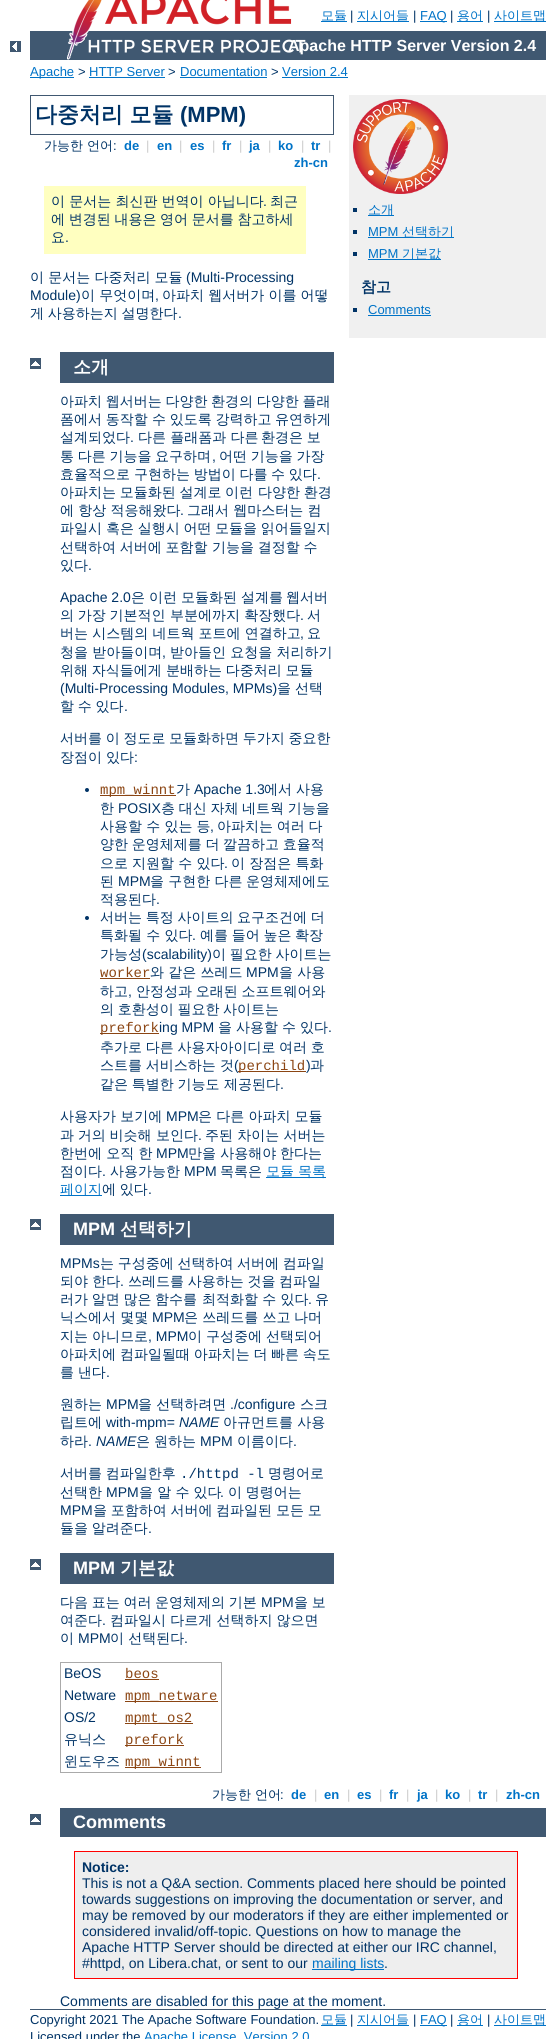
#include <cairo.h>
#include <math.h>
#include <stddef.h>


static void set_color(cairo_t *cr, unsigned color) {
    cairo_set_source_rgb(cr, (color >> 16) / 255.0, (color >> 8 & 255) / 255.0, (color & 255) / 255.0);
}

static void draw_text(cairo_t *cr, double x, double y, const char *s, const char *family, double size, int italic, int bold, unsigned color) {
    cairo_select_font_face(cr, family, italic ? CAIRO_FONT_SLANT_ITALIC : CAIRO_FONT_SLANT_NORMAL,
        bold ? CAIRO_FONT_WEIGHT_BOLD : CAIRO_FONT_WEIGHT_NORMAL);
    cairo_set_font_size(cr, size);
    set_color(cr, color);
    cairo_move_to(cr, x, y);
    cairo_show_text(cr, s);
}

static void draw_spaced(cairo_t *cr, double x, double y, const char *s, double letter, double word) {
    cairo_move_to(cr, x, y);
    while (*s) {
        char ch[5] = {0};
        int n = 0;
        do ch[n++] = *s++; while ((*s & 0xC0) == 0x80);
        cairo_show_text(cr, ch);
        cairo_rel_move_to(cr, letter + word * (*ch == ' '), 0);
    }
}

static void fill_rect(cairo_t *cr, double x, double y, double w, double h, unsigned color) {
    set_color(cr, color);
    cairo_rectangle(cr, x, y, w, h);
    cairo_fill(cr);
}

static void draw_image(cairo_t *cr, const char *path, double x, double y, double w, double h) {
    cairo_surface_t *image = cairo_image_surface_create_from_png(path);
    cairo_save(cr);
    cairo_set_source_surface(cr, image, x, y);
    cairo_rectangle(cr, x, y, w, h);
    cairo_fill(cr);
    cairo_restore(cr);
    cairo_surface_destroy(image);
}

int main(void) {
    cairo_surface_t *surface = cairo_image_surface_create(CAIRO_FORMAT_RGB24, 560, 2039);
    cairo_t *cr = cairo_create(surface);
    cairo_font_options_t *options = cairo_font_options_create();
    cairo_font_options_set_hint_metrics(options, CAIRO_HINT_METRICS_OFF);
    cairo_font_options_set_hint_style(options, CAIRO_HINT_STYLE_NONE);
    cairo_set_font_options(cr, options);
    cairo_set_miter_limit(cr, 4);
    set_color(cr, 0xFFFFFF);
    cairo_paint(cr);
    draw_image(cr, "assets/img1.png", 10, 41, 11, 11);
    fill_rect(cr, 30, 31, 516, 29, 0x405871);
    draw_text(cr, 288, 51, "Apache HTTP Server Version 2.4", "Liberation Sans", 16, 0, 1, 0xFFFFFF);
    draw_image(cr, "assets/img2.png", 67, 0, 239, 60);
    fill_rect(cr, 321, 21, 26, 1, 0x0073C7);
    draw_text(cr, 321, 20, "모듈", "WenQuanYi Zen Hei Medium", 13, 0, 0, 0x0073C7);
    draw_text(cr, 350, 20, "|", "Liberation Sans", 13, 0, 0, 0x003366);
    fill_rect(cr, 357, 21, 52, 1, 0x0073C7);
    draw_text(cr, 357, 20, "지시어들", "WenQuanYi Zen Hei Medium", 13, 0, 0, 0x0073C7);
    draw_text(cr, 413, 20, "|", "Liberation Sans", 13, 0, 0, 0x003366);
    fill_rect(cr, 420, 21, 27, 1, 0x0073C7);
    draw_text(cr, 420, 20, "FAQ", "Liberation Sans", 13, 0, 0, 0x0073C7);
    draw_text(cr, 450, 20, "|", "Liberation Sans", 13, 0, 0, 0x003366);
    fill_rect(cr, 457, 21, 26, 1, 0x0073C7);
    draw_text(cr, 457, 20, "용어", "WenQuanYi Zen Hei Medium", 13, 0, 0, 0x0073C7);
    draw_text(cr, 487, 20, "|", "Liberation Sans", 13, 0, 0, 0x003366);
    fill_rect(cr, 494, 21, 52, 1, 0x0073C7);
    draw_text(cr, 494, 20, "사이트맵", "WenQuanYi Zen Hei Medium", 13, 0, 0, 0x0073C7);
    fill_rect(cr, 30, 77, 44, 1, 0x0073C7);
    draw_text(cr, 30, 76, "Apache", "Liberation Sans", 13, 0, 0, 0x0073C7);
    draw_text(cr, 78, 76, ">", "Liberation Sans", 13, 0, 0, 0x003366);
    draw_text(cr, 89, 76, "HTTP Server", "Liberation Sans", 13, 0, 0, 0x0073C7);
    fill_rect(cr, 89, 77, 76, 1, 0x0073C7);
    draw_text(cr, 168, 76, ">", "Liberation Sans", 13, 0, 0, 0x003366);
    draw_text(cr, 180, 76, "Documentation", "Liberation Sans", 13, 0, 0, 0x0073C7);
    fill_rect(cr, 180, 77, 87, 1, 0x0073C7);
    draw_text(cr, 271, 76, ">", "Liberation Sans", 13, 0, 0, 0x003366);
    draw_text(cr, 282, 76, "Version 2.4", "Liberation Sans", 13, 0, 0, 0x0073C7);
    fill_rect(cr, 282, 77, 66, 1, 0x0073C7);
    cairo_rectangle(cr, 30.5, 95.5, 303, 39);
    set_color(cr, 0x405871);
    cairo_set_line_width(cr, 1);
    cairo_stroke(cr);
    draw_text(cr, 35, 122, "다중처리 모듈", "WenQuanYi Zen Hei", 22, 0, 1, 0x003366);
    draw_text(cr, 180, 122, "(MPM)", "Liberation Sans", 22, 0, 1, 0x003366);
    draw_text(cr, 44, 150, "가능한 언어", "WenQuanYi Zen Hei Medium", 13, 0, 0, 0x003366);
    draw_text(cr, 113, 150, ":", "Liberation Sans", 13, 0, 0, 0x003366);
    draw_text(cr, 124, 150, "de", "Liberation Sans", 13, 0, 1, 0x0073C7);
    draw_text(cr, 146, 150, "|", "Liberation Sans", 13, 0, 0, 0xCCCCCC);
    draw_text(cr, 157, 150, "en", "Liberation Sans", 13, 0, 1, 0x0073C7);
    draw_text(cr, 179, 150, "|", "Liberation Sans", 13, 0, 0, 0xCCCCCC);
    draw_text(cr, 190, 150, "es", "Liberation Sans", 13, 0, 1, 0x0073C7);
    draw_text(cr, 212, 150, "|", "Liberation Sans", 13, 0, 0, 0xCCCCCC);
    draw_text(cr, 222, 150, "fr", "Liberation Sans", 13, 0, 1, 0x0073C7);
    draw_text(cr, 239, 150, "|", "Liberation Sans", 13, 0, 0, 0xCCCCCC);
    draw_text(cr, 249, 150, "ja", "Liberation Sans", 13, 0, 1, 0x0073C7);
    draw_text(cr, 268, 150, "|", "Liberation Sans", 13, 0, 0, 0xCCCCCC);
    draw_text(cr, 278, 150, "ko", "Liberation Sans", 13, 0, 1, 0x0073C7);
    draw_text(cr, 301, 150, "|", "Liberation Sans", 13, 0, 0, 0xCCCCCC);
    draw_text(cr, 311, 150, "tr", "Liberation Sans", 13, 0, 1, 0x0073C7);
    draw_text(cr, 328, 150, "|", "Liberation Sans", 13, 0, 0, 0xCCCCCC);
    draw_text(cr, 294, 167, "zh-cn", "Liberation Sans", 13, 0, 1, 0x0073C7);
    fill_rect(cr, 44, 186, 262, 68, 0xFFFFC0);
    draw_text(cr, 51, 206, "이 문서는 최신판 번역이 아닙니다", "WenQuanYi Zen Hei Medium", 14, 0, 0, 0x003366);
    draw_text(cr, 263, 206, ".", "Liberation Sans", 14, 0, 0, 0x003366);
    draw_text(cr, 270, 206, "최근", "WenQuanYi Zen Hei Medium", 14, 0, 0, 0x003366);
    draw_spaced(cr, 51, 224, "에 변경된 내용은 영어 문서를 참고하세", 0, -0.5);
    draw_text(cr, 51, 242, "요", "WenQuanYi Zen Hei Medium", 14, 0, 0, 0x003366);
    draw_text(cr, 65, 242, ".", "Liberation Sans", 14, 0, 0, 0x003366);
    draw_text(cr, 30, 282, "이 문서는 다중처리 모듈", "WenQuanYi Zen Hei Medium", 14, 0, 0, 0x003366);
    draw_text(cr, 186, 282, "(Multi-Processing", "Liberation Sans", 14, 0, 0, 0x003366);
    draw_text(cr, 30, 300, "Module)", "Liberation Sans", 14, 0, 0, 0x003366);
    draw_text(cr, 81, 300, "이 무엇이며", "WenQuanYi Zen Hei Medium", 14, 0, 0, 0x003366);
    draw_text(cr, 155, 300, ",", "Liberation Sans", 14, 0, 0, 0x003366);
    draw_text(cr, 162, 300, "아파치 웹서버가 이를 어떻", "WenQuanYi Zen Hei Medium", 14, 0, 0, 0x003366);
    draw_spaced(cr, 30, 318, "게 사용하는지 설명한다", 0, -0.5);
    draw_text(cr, 178, 318, ".", "Liberation Sans", 14, 0, 0, 0x003366);
    fill_rect(cr, 349, 95, 197, 243, 0xF0F0F0);
    draw_image(cr, "assets/img3.png", 353, 99, 95, 95);
    fill_rect(cr, 353, 208, 4, 4, 0x003366);
    fill_rect(cr, 368, 215, 26, 1, 0x0073C7);
    draw_text(cr, 368, 214, "소개", "WenQuanYi Zen Hei Medium", 13, 0, 0, 0x0073C7);
    fill_rect(cr, 353, 230, 4, 4, 0x003366);
    draw_text(cr, 368, 236, "MPM", "Liberation Sans", 13, 0, 0, 0x0073C7);
    fill_rect(cr, 368, 237, 86, 1, 0x0073C7);
    draw_text(cr, 402, 236, "선택하기", "WenQuanYi Zen Hei Medium", 13, 0, 0, 0x0073C7);
    fill_rect(cr, 353, 252, 4, 4, 0x003366);
    draw_text(cr, 368, 258, "MPM", "Liberation Sans", 13, 0, 0, 0x0073C7);
    fill_rect(cr, 368, 259, 73, 1, 0x0073C7);
    draw_text(cr, 402, 258, "기본값", "WenQuanYi Zen Hei Medium", 13, 0, 0, 0x0073C7);
    draw_text(cr, 361, 292, "참고", "WenQuanYi Zen Hei", 15, 0, 1, 0x003366);
    fill_rect(cr, 353, 308, 4, 4, 0x003366);
    draw_text(cr, 368, 314, "Comments", "Liberation Sans", 13, 0, 0, 0x0073C7);
    fill_rect(cr, 368, 315, 63, 1, 0x0073C7);
    draw_image(cr, "assets/img4.png", 30, 358, 11, 11);
    fill_rect(cr, 60, 352, 274, 31, 0x405871);
    draw_text(cr, 73, 373, "소개", "WenQuanYi Zen Hei", 18, 0, 1, 0xFFFFFF);
    cairo_select_font_face(cr, "WenQuanYi Zen Hei Medium", CAIRO_FONT_SLANT_NORMAL, CAIRO_FONT_WEIGHT_NORMAL);
    cairo_set_font_size(cr, 14);
    set_color(cr, 0x003366);
    draw_spaced(cr, 60, 406, "아파치 웹서버는 다양한 환경의 다양한 플래", 0, -0.5);
    draw_spaced(cr, 60, 424, "폼에서 동작할", 0, -0.5);
    draw_spaced(cr, 152, 424, "수 있도록 강력하고 유연하게", 0, -0.5);
    draw_text(cr, 60, 442, "설계되었다", "WenQuanYi Zen Hei Medium", 14, 0, 0, 0x003366);
    draw_text(cr, 130, 442, ".", "Liberation Sans", 14, 0, 0, 0x003366);
    draw_text(cr, 138, 442, "다른 플래폼과 다른", "WenQuanYi Zen Hei Medium", 14, 0, 0, 0x003366);
    draw_spaced(cr, 261, 442, "환경은 보", 0, -0.5);
    draw_spaced(cr, 60, 461, "통 다른 기능을 요구하며", 0, -0.5);
    draw_text(cr, 212, 461, ",", "Liberation Sans", 14, 0, 0, 0x003366);
    cairo_select_font_face(cr, "WenQuanYi Zen Hei Medium", CAIRO_FONT_SLANT_NORMAL, CAIRO_FONT_WEIGHT_NORMAL);
    draw_spaced(cr, 219, 461, "어떤 기능을 가장", 0, -0.5);
    draw_text(cr, 60, 479, "효율적으로", "WenQuanYi Zen Hei Medium", 14, 0, 0, 0x003366);
    draw_spaced(cr, 134, 479, "구현하는 방법이 다를 수 있다", 0, -0.5);
    draw_text(cr, 317, 479, ".", "Liberation Sans", 14, 0, 0, 0x003366);
    cairo_select_font_face(cr, "WenQuanYi Zen Hei Medium", CAIRO_FONT_SLANT_NORMAL, CAIRO_FONT_WEIGHT_NORMAL);
    draw_spaced(cr, 60, 497, "아파치는 모듈화된 설계로 이런", 0, -0.5);
    draw_spaced(cr, 258, 497, "다양한 환경", 0, -0.5);
    draw_text(cr, 60, 515, "에 항상 적응해왔다", "WenQuanYi Zen Hei Medium", 14, 0, 0, 0x003366);
    draw_text(cr, 180, 515, ".", "Liberation Sans", 14, 0, 0, 0x003366);
    draw_text(cr, 187, 515, "그래서 웹마스터는 컴", "WenQuanYi Zen Hei Medium", 14, 0, 0, 0x003366);
    draw_text(cr, 60, 533, "파일시", "WenQuanYi Zen Hei Medium", 14, 0, 0, 0x003366);
    draw_spaced(cr, 106, 533, "혹은 실행시 어떤 모듈을 읽어들일지", 0, -0.5);
    draw_spaced(cr, 60, 552, "선택하여 서버에 포함할", 0, -0.5);
    draw_spaced(cr, 212, 552, "기능을 결정할 수", 0, -0.5);
    draw_text(cr, 60, 570, "있다", "WenQuanYi Zen Hei Medium", 14, 0, 0, 0x003366);
    draw_text(cr, 88, 570, ".", "Liberation Sans", 14, 0, 0, 0x003366);
    draw_text(cr, 60, 602, "Apache 2.0", "Liberation Sans", 14, 0, 0, 0x003366);
    draw_text(cr, 131, 602, "은", "WenQuanYi Zen Hei Medium", 14, 0, 0, 0x003366);
    draw_text(cr, 149, 602, "이런", "WenQuanYi Zen Hei Medium", 14, 0, 0, 0x003366);
    draw_text(cr, 181, 602, "모듈화된", "WenQuanYi Zen Hei Medium", 14, 0, 0, 0x003366);
    draw_text(cr, 241, 602, "설계를", "WenQuanYi Zen Hei Medium", 14, 0, 0, 0x003366);
    draw_text(cr, 286, 602, "웹서버", "WenQuanYi Zen Hei Medium", 14, 0, 0, 0x003366);
    draw_spaced(cr, 60, 620, "의 가장 기본적인", 0, -0.5);
    draw_text(cr, 170, 620, "부분에까지 확장했다", "WenQuanYi Zen Hei Medium", 14, 0, 0, 0x003366);
    draw_text(cr, 300, 620, ".", "Liberation Sans", 14, 0, 0, 0x003366);
    draw_text(cr, 307, 620, "서", "WenQuanYi Zen Hei Medium", 14, 0, 0, 0x003366);
    draw_text(cr, 60, 638, "버는 시스템의 네트웍 포트에 연결하고", "WenQuanYi Zen Hei Medium", 14, 0, 0, 0x003366);
    draw_text(cr, 300, 638, ",", "Liberation Sans", 14, 0, 0, 0x003366);
    draw_text(cr, 307, 638, "요", "WenQuanYi Zen Hei Medium", 14, 0, 0, 0x003366);
    draw_text(cr, 60, 657, "청을 받아들이며", "WenQuanYi Zen Hei Medium", 14, 0, 0, 0x003366);
    draw_text(cr, 162, 657, ",", "Liberation Sans", 14, 0, 0, 0x003366);
    draw_text(cr, 170, 657, "받아들인 요청을 처리하기", "WenQuanYi Zen Hei Medium", 14, 0, 0, 0x003366);
    draw_spaced(cr, 60, 675, "위해 자식들에게", 0, -0.5);
    draw_spaced(cr, 166, 675, "분배하는 다중처리 모듈", 0, -0.5);
    draw_text(cr, 60, 693, "(Multi-Processing Modules, MPMs)", "Liberation Sans", 14, 0, 0, 0x003366);
    draw_text(cr, 277, 693, "을", "WenQuanYi Zen Hei Medium", 14, 0, 0, 0x003366);
    draw_text(cr, 295, 693, "선택", "WenQuanYi Zen Hei Medium", 14, 0, 0, 0x003366);
    draw_spaced(cr, 60, 711, "할 수 있다", 0, -0.5);
    draw_text(cr, 124, 711, ".", "Liberation Sans", 14, 0, 0, 0x003366);
    cairo_select_font_face(cr, "WenQuanYi Zen Hei Medium", CAIRO_FONT_SLANT_NORMAL, CAIRO_FONT_WEIGHT_NORMAL);
    draw_spaced(cr, 60, 743, "서버를 이 정도로 모듈화하면 두가지 중요한", 0, -0.5);
    draw_text(cr, 60, 762, "장점이", "WenQuanYi Zen Hei Medium", 14, 0, 0, 0x003366);
    draw_text(cr, 106, 762, "있다", "WenQuanYi Zen Hei Medium", 14, 0, 0, 0x003366);
    draw_text(cr, 134, 762, ":", "Liberation Sans", 14, 0, 0, 0x003366);
    cairo_new_path(cr);
    cairo_arc(cr, 87, 790, 2, 0, 2 * M_PI);
    cairo_fill(cr);
    fill_rect(cr, 100, 795, 76, 1, 0x8B4513);
    draw_text(cr, 100, 794, "mpm_winnt", "Liberation Mono", 14, 0, 0, 0x8B4513);
    draw_text(cr, 176, 794, "가", "WenQuanYi Zen Hei Medium", 14, 0, 0, 0x003366);
    draw_text(cr, 194, 794, "Apache 1.3", "Liberation Sans", 14, 0, 0, 0x003366);
    draw_text(cr, 264, 794, "에서", "WenQuanYi Zen Hei Medium", 14, 0, 0, 0x003366);
    draw_text(cr, 296, 794, "사용", "WenQuanYi Zen Hei Medium", 14, 0, 0, 0x003366);
    draw_text(cr, 100, 813, "한", "WenQuanYi Zen Hei Medium", 14, 0, 0, 0x003366);
    draw_text(cr, 118, 813, "POSIX", "Liberation Sans", 14, 0, 0, 0x003366);
    cairo_select_font_face(cr, "WenQuanYi Zen Hei Medium", CAIRO_FONT_SLANT_NORMAL, CAIRO_FONT_WEIGHT_NORMAL);
    draw_spaced(cr, 161, 813, "층 대신 자체 네트웍 기능을", 0, -0.5);
    draw_text(cr, 100, 831, "사용할 수 있는 등", "WenQuanYi Zen Hei Medium", 14, 0, 0, 0x003366);
    draw_text(cr, 210, 831, ",", "Liberation Sans", 14, 0, 0, 0x003366);
    cairo_select_font_face(cr, "WenQuanYi Zen Hei Medium", CAIRO_FONT_SLANT_NORMAL, CAIRO_FONT_WEIGHT_NORMAL);
    draw_spaced(cr, 217, 831, "아파치는 여러 다", 0, -0.5);
    draw_spaced(cr, 100, 849, "양한 운영체제를 더 깔끔하고 효율적", 0, -0.5);
    draw_text(cr, 100, 868, "으로", "WenQuanYi Zen Hei Medium", 14, 0, 0, 0x003366);
    draw_text(cr, 132, 868, "지원할 수 있다", "WenQuanYi Zen Hei Medium", 14, 0, 0, 0x003366);
    draw_text(cr, 224, 868, ".", "Liberation Sans", 14, 0, 0, 0x003366);
    draw_text(cr, 231, 868, "이 장점은 특화", "WenQuanYi Zen Hei Medium", 14, 0, 0, 0x003366);
    draw_text(cr, 100, 886, "된", "WenQuanYi Zen Hei Medium", 14, 0, 0, 0x003366);
    draw_text(cr, 118, 886, "MPM", "Liberation Sans", 14, 0, 0, 0x003366);
    draw_text(cr, 150, 886, "을 구현한 다른", "WenQuanYi Zen Hei Medium", 14, 0, 0, 0x003366);
    draw_text(cr, 246, 886, "운영체제에도", "WenQuanYi Zen Hei Medium", 14, 0, 0, 0x003366);
    draw_text(cr, 100, 904, "적용된다", "WenQuanYi Zen Hei Medium", 14, 0, 0, 0x003366);
    draw_text(cr, 156, 904, ".", "Liberation Sans", 14, 0, 0, 0x003366);
    cairo_new_path(cr);
    cairo_arc(cr, 87, 918, 2, 0, 2 * M_PI);
    cairo_fill(cr);
    cairo_select_font_face(cr, "WenQuanYi Zen Hei Medium", CAIRO_FONT_SLANT_NORMAL, CAIRO_FONT_WEIGHT_NORMAL);
    draw_spaced(cr, 100, 922, "서버는 특정 사이트의 요구조건에 더", 0, -0.5);
    draw_text(cr, 100, 940, "특화될 수 있다", "WenQuanYi Zen Hei Medium", 14, 0, 0, 0x003366);
    draw_text(cr, 192, 940, ".", "Liberation Sans", 14, 0, 0, 0x003366);
    cairo_select_font_face(cr, "WenQuanYi Zen Hei Medium", CAIRO_FONT_SLANT_NORMAL, CAIRO_FONT_WEIGHT_NORMAL);
    draw_spaced(cr, 200, 940, "예를 들어 높은 확장", 0, -0.5);
    draw_text(cr, 100, 959, "가능성", "WenQuanYi Zen Hei Medium", 14, 0, 0, 0x003366);
    draw_text(cr, 142, 959, "(scalability)", "Liberation Sans", 14, 0, 0, 0x003366);
    cairo_select_font_face(cr, "WenQuanYi Zen Hei Medium", CAIRO_FONT_SLANT_NORMAL, CAIRO_FONT_WEIGHT_NORMAL);
    draw_spaced(cr, 212, 959, "이 필요한 사이트는", 0, -0.5);
    draw_text(cr, 100, 977, "worker", "Liberation Mono", 14, 0, 0, 0x8B4513);
    fill_rect(cr, 100, 978, 50, 1, 0x8B4513);
    draw_text(cr, 150, 977, "와 같은 쓰레드", "WenQuanYi Zen Hei Medium", 14, 0, 0, 0x003366);
    draw_text(cr, 246, 977, "MPM", "Liberation Sans", 14, 0, 0, 0x003366);
    draw_text(cr, 279, 977, "을 사용", "WenQuanYi Zen Hei Medium", 14, 0, 0, 0x003366);
    draw_text(cr, 100, 996, "하고", "WenQuanYi Zen Hei Medium", 14, 0, 0, 0x003366);
    draw_text(cr, 128, 996, ",", "Liberation Sans", 14, 0, 0, 0x003366);
    cairo_select_font_face(cr, "WenQuanYi Zen Hei Medium", CAIRO_FONT_SLANT_NORMAL, CAIRO_FONT_WEIGHT_NORMAL);
    draw_spaced(cr, 136, 996, "안정성과 오래된 소프트웨어와", 0, -0.5);
    draw_spaced(cr, 100, 1014, "의 호환성이 필요한 사이트는", 0, -0.5);
    fill_rect(cr, 100, 1033, 59, 1, 0x8B4513);
    draw_text(cr, 100, 1032, "prefork", "Liberation Mono", 14, 0, 0, 0x8B4513);
    draw_text(cr, 159, 1032, "ing MPM", "Liberation Sans", 14, 0, 0, 0x003366);
    draw_text(cr, 218, 1032, "을", "WenQuanYi Zen Hei Medium", 14, 0, 0, 0x003366);
    draw_text(cr, 236, 1032, "사용할", "WenQuanYi Zen Hei Medium", 14, 0, 0, 0x003366);
    draw_text(cr, 282, 1032, "수", "WenQuanYi Zen Hei Medium", 14, 0, 0, 0x003366);
    draw_text(cr, 300, 1032, "있다", "WenQuanYi Zen Hei Medium", 14, 0, 0, 0x003366);
    draw_text(cr, 328, 1032, ".", "Liberation Sans", 14, 0, 0, 0x003366);
    cairo_select_font_face(cr, "WenQuanYi Zen Hei Medium", CAIRO_FONT_SLANT_NORMAL, CAIRO_FONT_WEIGHT_NORMAL);
    draw_spaced(cr, 100, 1052, "추가로 다른 사용자아이디로 여러 호", 0, -0.5);
    draw_spaced(cr, 100, 1070, "스트를 서비스하는", 0, -0.5);
    draw_text(cr, 220, 1070, "것", "WenQuanYi Zen Hei Medium", 14, 0, 0, 0x003366);
    draw_text(cr, 234, 1070, "(", "Liberation Sans", 14, 0, 0, 0x003366);
    fill_rect(cr, 238, 1071, 68, 1, 0x8B4513);
    draw_text(cr, 238, 1070, "perchild", "Liberation Mono", 14, 0, 0, 0x8B4513);
    draw_text(cr, 306, 1070, ")", "Liberation Sans", 14, 0, 0, 0x003366);
    draw_text(cr, 310, 1070, "과", "WenQuanYi Zen Hei Medium", 14, 0, 0, 0x003366);
    draw_spaced(cr, 100, 1089, "같은 특별한 기능도", 0, -0.5);
    draw_text(cr, 224, 1089, "제공된다", "WenQuanYi Zen Hei Medium", 14, 0, 0, 0x003366);
    draw_text(cr, 280, 1089, ".", "Liberation Sans", 14, 0, 0, 0x003366);
    draw_text(cr, 60, 1121, "사용자가 보기에", "WenQuanYi Zen Hei Medium", 14, 0, 0, 0x003366);
    draw_text(cr, 166, 1121, "MPM", "Liberation Sans", 14, 0, 0, 0x003366);
    draw_text(cr, 198, 1121, "은 다른 아파치 모듈", "WenQuanYi Zen Hei Medium", 14, 0, 0, 0x003366);
    draw_spaced(cr, 60, 1140, "과 거의 비슷해", 0, -0.5);
    draw_text(cr, 156, 1140, "보인다", "WenQuanYi Zen Hei Medium", 14, 0, 0, 0x003366);
    draw_text(cr, 198, 1140, ".", "Liberation Sans", 14, 0, 0, 0x003366);
    draw_text(cr, 205, 1140, "주된 차이는 서버는", "WenQuanYi Zen Hei Medium", 14, 0, 0, 0x003366);
    draw_text(cr, 60, 1158, "한번에 오직 한", "WenQuanYi Zen Hei Medium", 14, 0, 0, 0x003366);
    draw_text(cr, 156, 1158, "MPM", "Liberation Sans", 14, 0, 0, 0x003366);
    draw_text(cr, 188, 1158, "만을 사용해야", "WenQuanYi Zen Hei Medium", 14, 0, 0, 0x003366);
    draw_text(cr, 280, 1158, "한다는", "WenQuanYi Zen Hei Medium", 14, 0, 0, 0x003366);
    draw_text(cr, 60, 1176, "점이다", "WenQuanYi Zen Hei Medium", 14, 0, 0, 0x003366);
    draw_text(cr, 102, 1176, ".", "Liberation Sans", 14, 0, 0, 0x003366);
    draw_text(cr, 110, 1176, "사용가능한", "WenQuanYi Zen Hei Medium", 14, 0, 0, 0x003366);
    draw_text(cr, 184, 1176, "MPM", "Liberation Sans", 14, 0, 0, 0x003366);
    draw_text(cr, 220, 1176, "목록은", "WenQuanYi Zen Hei Medium", 14, 0, 0, 0x003366);
    fill_rect(cr, 266, 1177, 60, 1, 0x0073C7);
    draw_text(cr, 266, 1176, "모듈", "WenQuanYi Zen Hei Medium", 14, 0, 0, 0x0073C7);
    draw_text(cr, 298, 1176, "목록", "WenQuanYi Zen Hei Medium", 14, 0, 0, 0x0073C7);
    fill_rect(cr, 60, 1195, 42, 1, 0x0073C7);
    draw_text(cr, 60, 1194, "페이지", "WenQuanYi Zen Hei Medium", 14, 0, 0, 0x0073C7);
    set_color(cr, 0x003366);
    draw_spaced(cr, 102, 1194, "에 있다", 0, -0.5);
    draw_text(cr, 148, 1194, ".", "Liberation Sans", 14, 0, 0, 0x003366);
    draw_image(cr, "assets/img4.png", 30, 1219, 11, 11);
    fill_rect(cr, 60, 1214, 274, 31, 0x405871);
    draw_text(cr, 73, 1235, "MPM", "Liberation Sans", 18, 0, 1, 0xFFFFFF);
    draw_text(cr, 120, 1235, "선택하기", "WenQuanYi Zen Hei", 18, 0, 1, 0xFFFFFF);
    draw_text(cr, 60, 1268, "MPMs", "Liberation Sans", 14, 0, 0, 0x003366);
    cairo_select_font_face(cr, "WenQuanYi Zen Hei Medium", CAIRO_FONT_SLANT_NORMAL, CAIRO_FONT_WEIGHT_NORMAL);
    draw_spaced(cr, 100, 1268, "는 구성중에 선택하여 서버에 컴파일", 0, -0.5);
    draw_text(cr, 60, 1286, "되야 한다", "WenQuanYi Zen Hei Medium", 14, 0, 0, 0x003366);
    draw_text(cr, 120, 1286, ".", "Liberation Sans", 14, 0, 0, 0x003366);
    cairo_select_font_face(cr, "WenQuanYi Zen Hei Medium", CAIRO_FONT_SLANT_NORMAL, CAIRO_FONT_WEIGHT_NORMAL);
    draw_spaced(cr, 128, 1286, "쓰레드를 사용하는 것을 컴파일", 0, -0.5);
    draw_spaced(cr, 60, 1304, "러가 알면 많은 함수를", 0, -0.5);
    draw_text(cr, 202, 1304, "최적화할 수 있다", "WenQuanYi Zen Hei Medium", 14, 0, 0, 0x003366);
    draw_text(cr, 308, 1304, ".", "Liberation Sans", 14, 0, 0, 0x003366);
    draw_text(cr, 315, 1304, "유", "WenQuanYi Zen Hei Medium", 14, 0, 0, 0x003366);
    draw_text(cr, 60, 1322, "닉스에서 몇몇", "WenQuanYi Zen Hei Medium", 14, 0, 0, 0x003366);
    draw_text(cr, 152, 1322, "MPM", "Liberation Sans", 14, 0, 0, 0x003366);
    draw_text(cr, 184, 1322, "은 쓰레드를 쓰고", "WenQuanYi Zen Hei Medium", 14, 0, 0, 0x003366);
    draw_text(cr, 294, 1322, "나머", "WenQuanYi Zen Hei Medium", 14, 0, 0, 0x003366);
    draw_text(cr, 60, 1341, "지는", "WenQuanYi Zen Hei Medium", 14, 0, 0, 0x003366);
    draw_text(cr, 92, 1341, "아니므로", "WenQuanYi Zen Hei Medium", 14, 0, 0, 0x003366);
    draw_text(cr, 148, 1341, ", MPM", "Liberation Sans", 14, 0, 0, 0x003366);
    draw_text(cr, 188, 1341, "이", "WenQuanYi Zen Hei Medium", 14, 0, 0, 0x003366);
    draw_text(cr, 206, 1341, "구성중에", "WenQuanYi Zen Hei Medium", 14, 0, 0, 0x003366);
    draw_text(cr, 266, 1341, "선택되어", "WenQuanYi Zen Hei Medium", 14, 0, 0, 0x003366);
    draw_text(cr, 60, 1359, "아파치에", "WenQuanYi Zen Hei Medium", 14, 0, 0, 0x003366);
    draw_spaced(cr, 120, 1359, "컴파일될때 아파치는 더 빠른 속도", 0, -0.5);
    draw_spaced(cr, 60, 1377, "를 낸다", 0, -0.5);
    draw_text(cr, 106, 1377, ".", "Liberation Sans", 14, 0, 0, 0x003366);
    draw_text(cr, 60, 1409, "원하는", "WenQuanYi Zen Hei Medium", 14, 0, 0, 0x003366);
    draw_text(cr, 106, 1409, "MPM", "Liberation Sans", 14, 0, 0, 0x003366);
    draw_text(cr, 138, 1409, "을 선택하려면", "WenQuanYi Zen Hei Medium", 14, 0, 0, 0x003366);
    draw_text(cr, 230, 1409, "./configure", "Liberation Sans", 14, 0, 0, 0x003366);
    draw_text(cr, 300, 1409, "스크", "WenQuanYi Zen Hei Medium", 14, 0, 0, 0x003366);
    draw_text(cr, 60, 1427, "립트에", "WenQuanYi Zen Hei Medium", 14, 0, 0, 0x003366);
    draw_text(cr, 106, 1427, "with-mpm=", "Liberation Sans", 14, 0, 0, 0x003366);
    draw_text(cr, 179, 1427, "NAME", "Liberation Sans", 14, 1, 0, 0x003366);
    draw_text(cr, 223, 1427, "아규먼트를 사용", "WenQuanYi Zen Hei Medium", 14, 0, 0, 0x003366);
    draw_text(cr, 60, 1446, "하라", "WenQuanYi Zen Hei Medium", 14, 0, 0, 0x003366);
    draw_text(cr, 88, 1446, ".", "Liberation Sans", 14, 0, 0, 0x003366);
    draw_text(cr, 96, 1446, "NAME", "Liberation Sans", 14, 1, 0, 0x003366);
    draw_text(cr, 136, 1446, "은", "WenQuanYi Zen Hei Medium", 14, 0, 0, 0x003366);
    draw_text(cr, 154, 1446, "원하는", "WenQuanYi Zen Hei Medium", 14, 0, 0, 0x003366);
    draw_text(cr, 200, 1446, "MPM", "Liberation Sans", 14, 0, 0, 0x003366);
    draw_text(cr, 237, 1446, "이름이다", "WenQuanYi Zen Hei Medium", 14, 0, 0, 0x003366);
    draw_text(cr, 293, 1446, ".", "Liberation Sans", 14, 0, 0, 0x003366);
    cairo_select_font_face(cr, "WenQuanYi Zen Hei Medium", CAIRO_FONT_SLANT_NORMAL, CAIRO_FONT_WEIGHT_NORMAL);
    draw_spaced(cr, 60, 1478, "서버를 컴파일한후", 0, -0.5);
    draw_text(cr, 180, 1478, "./httpd -l", "Liberation Mono", 14, 0, 0, 0x003366);
    draw_text(cr, 268, 1478, "명령어로", "WenQuanYi Zen Hei Medium", 14, 0, 0, 0x003366);
    draw_text(cr, 60, 1497, "선택한", "WenQuanYi Zen Hei Medium", 14, 0, 0, 0x003366);
    draw_text(cr, 106, 1497, "MPM", "Liberation Sans", 14, 0, 0, 0x003366);
    draw_text(cr, 139, 1497, "을 알 수 있다", "WenQuanYi Zen Hei Medium", 14, 0, 0, 0x003366);
    draw_text(cr, 220, 1497, ".", "Liberation Sans", 14, 0, 0, 0x003366);
    cairo_select_font_face(cr, "WenQuanYi Zen Hei Medium", CAIRO_FONT_SLANT_NORMAL, CAIRO_FONT_WEIGHT_NORMAL);
    draw_spaced(cr, 228, 1497, "이 명령어는", 0, -0.5);
    draw_text(cr, 60, 1515, "MPM", "Liberation Sans", 14, 0, 0, 0x003366);
    cairo_select_font_face(cr, "WenQuanYi Zen Hei Medium", CAIRO_FONT_SLANT_NORMAL, CAIRO_FONT_WEIGHT_NORMAL);
    draw_spaced(cr, 93, 1515, "을 포함하여 서버에 컴파일된", 0, -0.5);
    draw_spaced(cr, 276, 1515, "모든 모", 0, -0.5);
    draw_spaced(cr, 60, 1533, "듈을 알려준다", 0, -0.5);
    draw_text(cr, 148, 1533, ".", "Liberation Sans", 14, 0, 0, 0x003366);
    draw_image(cr, "assets/img4.png", 30, 1559, 11, 11);
    fill_rect(cr, 60, 1553, 274, 31, 0x405871);
    draw_text(cr, 73, 1574, "MPM", "Liberation Sans", 18, 0, 1, 0xFFFFFF);
    draw_text(cr, 120, 1574, "기본값", "WenQuanYi Zen Hei", 18, 0, 1, 0xFFFFFF);
    cairo_select_font_face(cr, "WenQuanYi Zen Hei Medium", CAIRO_FONT_SLANT_NORMAL, CAIRO_FONT_WEIGHT_NORMAL);
    cairo_set_font_size(cr, 14);
    set_color(cr, 0x003366);
    draw_spaced(cr, 60, 1607, "다음 표는 여러 운영체제의 기본", 0, -0.5);
    draw_text(cr, 261, 1607, "MPM", "Liberation Sans", 14, 0, 0, 0x003366);
    cairo_select_font_face(cr, "WenQuanYi Zen Hei Medium", CAIRO_FONT_SLANT_NORMAL, CAIRO_FONT_WEIGHT_NORMAL);
    draw_spaced(cr, 294, 1607, "을 보", 0, -0.5);
    draw_text(cr, 60, 1625, "여준다", "WenQuanYi Zen Hei Medium", 14, 0, 0, 0x003366);
    draw_text(cr, 102, 1625, ".", "Liberation Sans", 14, 0, 0, 0x003366);
    draw_text(cr, 110, 1625, "컴파일시 다르게 선택하지 않으면", "WenQuanYi Zen Hei Medium", 14, 0, 0, 0x003366);
    draw_text(cr, 60, 1643, "이", "WenQuanYi Zen Hei Medium", 14, 0, 0, 0x003366);
    draw_text(cr, 78, 1643, "MPM", "Liberation Sans", 14, 0, 0, 0x003366);
    draw_text(cr, 110, 1643, "이 선택된다", "WenQuanYi Zen Hei Medium", 14, 0, 0, 0x003366);
    draw_text(cr, 184, 1643, ".", "Liberation Sans", 14, 0, 0, 0x003366);
    fill_rect(cr, 60, 1662, 162, 1, 0xAAAAAA);
    fill_rect(cr, 221, 1662, 1, 111, 0xAAAAAA);
    fill_rect(cr, 60, 1772, 162, 1, 0xAAAAAA);
    fill_rect(cr, 60, 1662, 1, 111, 0xAAAAAA);
    draw_text(cr, 64, 1678, "BeOS", "Liberation Sans", 14, 0, 0, 0x003366);
    draw_text(cr, 125, 1678, "beos", "Liberation Mono", 14, 0, 0, 0x8B4513);
    fill_rect(cr, 125, 1679, 34, 1, 0x8B4513);
    draw_text(cr, 64, 1700, "Netware", "Liberation Sans", 14, 0, 0, 0x003366);
    fill_rect(cr, 125, 1701, 93, 1, 0x8B4513);
    draw_text(cr, 125, 1700, "mpm_netware", "Liberation Mono", 14, 0, 0, 0x8B4513);
    draw_text(cr, 64, 1722, "OS/2", "Liberation Sans", 14, 0, 0, 0x003366);
    fill_rect(cr, 125, 1723, 68, 1, 0x8B4513);
    draw_text(cr, 125, 1722, "mpmt_os2", "Liberation Mono", 14, 0, 0, 0x8B4513);
    draw_text(cr, 64, 1744, "유닉스", "WenQuanYi Zen Hei Medium", 14, 0, 0, 0x003366);
    fill_rect(cr, 125, 1745, 59, 1, 0x8B4513);
    draw_text(cr, 125, 1744, "prefork", "Liberation Mono", 14, 0, 0, 0x8B4513);
    draw_text(cr, 64, 1766, "윈도우즈", "WenQuanYi Zen Hei Medium", 14, 0, 0, 0x003366);
    fill_rect(cr, 125, 1767, 76, 1, 0x8B4513);
    draw_text(cr, 125, 1766, "mpm_winnt", "Liberation Mono", 14, 0, 0, 0x8B4513);
    draw_text(cr, 212, 1799, "가능한 언어", "WenQuanYi Zen Hei Medium", 13, 0, 0, 0x003366);
    draw_text(cr, 280, 1799, ":", "Liberation Sans", 13, 0, 0, 0x003366);
    draw_text(cr, 291, 1799, "de", "Liberation Sans", 13, 0, 1, 0x0073C7);
    draw_text(cr, 314, 1799, "|", "Liberation Sans", 13, 0, 0, 0xCCCCCC);
    draw_text(cr, 324, 1799, "en", "Liberation Sans", 13, 0, 1, 0x0073C7);
    draw_text(cr, 347, 1799, "|", "Liberation Sans", 13, 0, 0, 0xCCCCCC);
    draw_text(cr, 357, 1799, "es", "Liberation Sans", 13, 0, 1, 0x0073C7);
    draw_text(cr, 379, 1799, "|", "Liberation Sans", 13, 0, 0, 0xCCCCCC);
    draw_text(cr, 389, 1799, "fr", "Liberation Sans", 13, 0, 1, 0x0073C7);
    draw_text(cr, 406, 1799, "|", "Liberation Sans", 13, 0, 0, 0xCCCCCC);
    draw_text(cr, 417, 1799, "ja", "Liberation Sans", 13, 0, 1, 0x0073C7);
    draw_text(cr, 435, 1799, "|", "Liberation Sans", 13, 0, 0, 0xCCCCCC);
    draw_text(cr, 445, 1799, "ko", "Liberation Sans", 13, 0, 1, 0x0073C7);
    draw_text(cr, 468, 1799, "|", "Liberation Sans", 13, 0, 0, 0xCCCCCC);
    draw_text(cr, 478, 1799, "tr", "Liberation Sans", 13, 0, 1, 0x0073C7);
    draw_text(cr, 495, 1799, "|", "Liberation Sans", 13, 0, 0, 0xCCCCCC);
    draw_text(cr, 506, 1799, "zh-cn", "Liberation Sans", 13, 0, 1, 0x0073C7);
    draw_image(cr, "assets/img4.png", 30, 1814, 11, 11);
    fill_rect(cr, 60, 1808, 486, 29, 0x405871);
    draw_text(cr, 73, 1828, "Comments", "Liberation Sans", 18, 0, 1, 0xFFFFFF);
    set_color(cr, 0xEEEEEE);
    cairo_rectangle(cr, 74.5, 1851.5, 443, 127);
    cairo_fill_preserve(cr);
    set_color(cr, 0xFF0000);
    cairo_stroke(cr);
    draw_text(cr, 82, 1872, "Notice:", "Liberation Sans", 14, 0, 1, 0x003366);
    draw_text(cr, 82, 1888, "This is not a Q&A section. Comments placed here should be pointed", "Liberation Sans", 14, 0, 0, 0x003366);
    draw_text(cr, 82, 1904, "towards suggestions on improving the documentation or server, and", "Liberation Sans", 14, 0, 0, 0x003366);
    draw_text(cr, 82, 1920, "may be removed by our moderators if they are either implemented or", "Liberation Sans", 14, 0, 0, 0x003366);
    draw_text(cr, 82, 1936, "considered invalid/off-topic. Questions on how to manage the", "Liberation Sans", 14, 0, 0, 0x003366);
    draw_text(cr, 82, 1952, "Apache HTTP Server should be directed at either our IRC channel,", "Liberation Sans", 14, 0, 0, 0x003366);
    draw_text(cr, 82, 1968, "#httpd, on Libera.chat, or sent to our", "Liberation Sans", 14, 0, 0, 0x003366);
    fill_rect(cr, 312, 1969, 72, 1, 0x0073C7);
    draw_text(cr, 312, 1968, "mailing lists", "Liberation Sans", 14, 0, 0, 0x0073C7);
    draw_text(cr, 384, 1968, ".", "Liberation Sans", 14, 0, 0, 0x003366);
    draw_text(cr, 60, 2006, "Comments are disabled for this page at the moment.", "Liberation Sans", 14, 0, 0, 0x003366);
    fill_rect(cr, 30, 2009, 516, 1, 0x405871);
    draw_text(cr, 30, 2024, "Copyright 2021 The Apache Software Foundation.", "Liberation Sans", 13, 0, 0, 0x003366);
    draw_text(cr, 30, 2041, "Licensed under the", "Liberation Sans", 13, 0, 0, 0x003366);
    draw_text(cr, 144, 2041, "Apache License, Version 2.0", "Liberation Sans", 13, 0, 0, 0x0073C7);
    fill_rect(cr, 321, 2025, 26, 1, 0x0073C7);
    draw_text(cr, 321, 2024, "모듈", "WenQuanYi Zen Hei Medium", 13, 0, 0, 0x0073C7);
    draw_text(cr, 350, 2024, "|", "Liberation Sans", 13, 0, 0, 0x003366);
    fill_rect(cr, 357, 2025, 52, 1, 0x0073C7);
    draw_text(cr, 357, 2024, "지시어들", "WenQuanYi Zen Hei Medium", 13, 0, 0, 0x0073C7);
    draw_text(cr, 413, 2024, "|", "Liberation Sans", 13, 0, 0, 0x003366);
    fill_rect(cr, 420, 2025, 27, 1, 0x0073C7);
    draw_text(cr, 420, 2024, "FAQ", "Liberation Sans", 13, 0, 0, 0x0073C7);
    draw_text(cr, 450, 2024, "|", "Liberation Sans", 13, 0, 0, 0x003366);
    fill_rect(cr, 457, 2025, 26, 1, 0x0073C7);
    draw_text(cr, 457, 2024, "용어", "WenQuanYi Zen Hei Medium", 13, 0, 0, 0x0073C7);
    draw_text(cr, 487, 2024, "|", "Liberation Sans", 13, 0, 0, 0x003366);
    fill_rect(cr, 494, 2025, 52, 1, 0x0073C7);
    draw_text(cr, 494, 2024, "사이트맵", "WenQuanYi Zen Hei Medium", 13, 0, 0, 0x0073C7);
    cairo_surface_write_to_png(surface, "output.png");
    cairo_font_options_destroy(options);
    cairo_destroy(cr);
    cairo_surface_destroy(surface);
    return 0;
}
